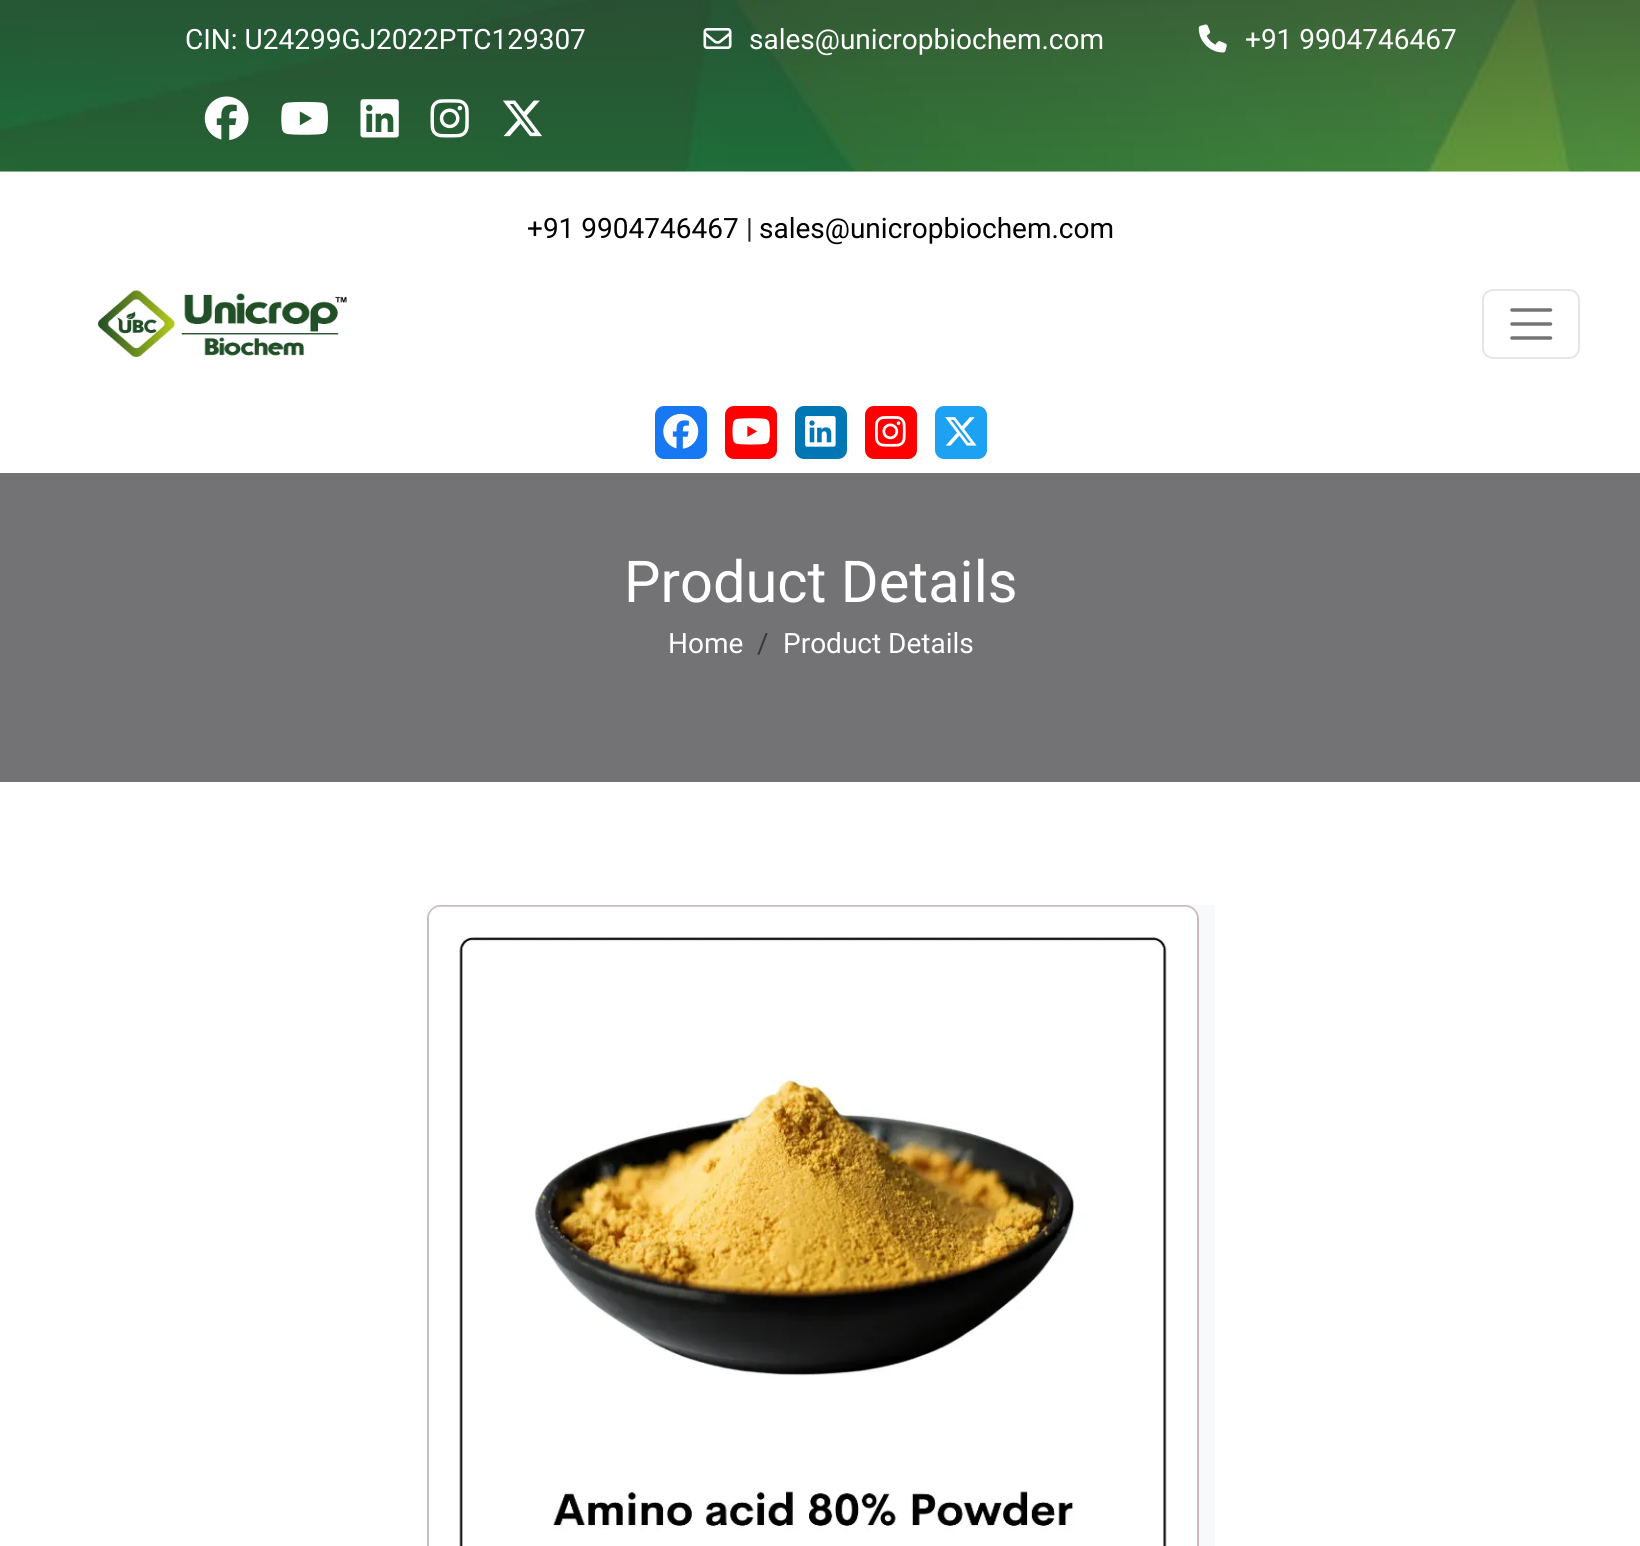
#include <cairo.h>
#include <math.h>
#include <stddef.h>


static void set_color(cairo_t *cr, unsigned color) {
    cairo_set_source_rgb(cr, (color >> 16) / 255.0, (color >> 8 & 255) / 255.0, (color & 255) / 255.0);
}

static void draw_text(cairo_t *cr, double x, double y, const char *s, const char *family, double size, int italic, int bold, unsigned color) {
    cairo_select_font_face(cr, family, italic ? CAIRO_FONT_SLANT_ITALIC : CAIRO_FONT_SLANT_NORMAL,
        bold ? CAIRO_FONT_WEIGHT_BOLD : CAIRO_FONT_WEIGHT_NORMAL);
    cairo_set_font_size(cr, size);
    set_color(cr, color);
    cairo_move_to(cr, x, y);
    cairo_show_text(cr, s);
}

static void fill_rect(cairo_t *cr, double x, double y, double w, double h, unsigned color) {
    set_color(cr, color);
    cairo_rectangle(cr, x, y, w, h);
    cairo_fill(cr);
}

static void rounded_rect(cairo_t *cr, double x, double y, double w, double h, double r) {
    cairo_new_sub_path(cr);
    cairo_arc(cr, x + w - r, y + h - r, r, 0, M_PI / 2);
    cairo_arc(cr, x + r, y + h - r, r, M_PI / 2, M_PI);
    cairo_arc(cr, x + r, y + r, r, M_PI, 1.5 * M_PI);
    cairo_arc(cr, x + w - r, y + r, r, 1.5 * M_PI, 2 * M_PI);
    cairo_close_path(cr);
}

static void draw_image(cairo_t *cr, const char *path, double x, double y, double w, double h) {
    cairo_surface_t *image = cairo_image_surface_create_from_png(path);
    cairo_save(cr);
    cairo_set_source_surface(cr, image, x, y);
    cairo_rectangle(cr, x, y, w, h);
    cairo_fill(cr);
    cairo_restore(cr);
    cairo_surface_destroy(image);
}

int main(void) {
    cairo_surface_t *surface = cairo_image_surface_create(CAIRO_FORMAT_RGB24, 1640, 1546);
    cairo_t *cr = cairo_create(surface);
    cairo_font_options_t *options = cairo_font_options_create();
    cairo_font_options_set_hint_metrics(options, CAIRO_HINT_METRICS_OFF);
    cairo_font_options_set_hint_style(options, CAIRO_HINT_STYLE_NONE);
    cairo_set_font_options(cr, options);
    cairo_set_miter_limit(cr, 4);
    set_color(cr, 0xFFFFFF);
    cairo_paint(cr);
    draw_image(cr, "assets/img1.png", 0, 0, 1640, 172);
    draw_text(cr, 185, 49, "CIN: U24299GJ2022PTC129307", "Roboto", 28, 0, 0, 0xFFFFFF);
    draw_image(cr, "assets/img2.png", 703, 28, 29, 21);
    draw_text(cr, 749, 49, "sales@unicropbiochem.com", "Roboto", 28, 0, 0, 0xFFFFFF);
    draw_image(cr, "assets/img3.png", 1198, 24, 29, 29);
    draw_text(cr, 1245, 49, "+91 9904746467", "Roboto", 28, 0, 0, 0xFFFFFF);
    draw_image(cr, "assets/img4.png", 204, 96, 45, 44);
    draw_image(cr, "assets/img5.png", 281, 101, 47, 34);
    draw_image(cr, "assets/img6.png", 360, 99, 39, 39);
    draw_image(cr, "assets/img7.png", 430, 99, 39, 39);
    draw_image(cr, "assets/img8.png", 503, 100, 39, 37);
    draw_text(cr, 527, 238, "+91 9904746467", "Roboto", 28, 0, 0, 0x000000);
    draw_text(cr, 746, 238, "|", "Roboto", 28, 0, 0, 0x212529);
    draw_text(cr, 759, 238, "sales@unicropbiochem.com", "Roboto", 28, 0, 0, 0x000000);
    draw_image(cr, "assets/img9.png", 98, 290, 249, 67);
    rounded_rect(cr, 1483, 290, 96, 68, 10);
    set_color(cr, 0xE6E6E6);
    cairo_stroke(cr);
    cairo_new_path(cr);
    cairo_move_to(cr, 1512, 310);
    cairo_line_to(cr, 1550.5, 310);
    cairo_move_to(cr, 1512, 324);
    cairo_line_to(cr, 1550.5, 324);
    cairo_move_to(cr, 1512, 338);
    cairo_line_to(cr, 1550.5, 338);
    set_color(cr, 0x737373);
    cairo_set_line_width(cr, 3.5);
    cairo_set_line_cap(cr, CAIRO_LINE_CAP_ROUND);
    cairo_stroke(cr);
    set_color(cr, 0x1877F2);
    rounded_rect(cr, 655, 406, 52, 53, 9);
    cairo_fill(cr);
    draw_image(cr, "assets/img10.png", 663, 413, 36, 36);
    set_color(cr, 0xFF0000);
    rounded_rect(cr, 725, 406, 52, 53, 9);
    cairo_fill(cr);
    draw_image(cr, "assets/img11.png", 732, 418, 38, 27);
    set_color(cr, 0x0077B5);
    rounded_rect(cr, 795, 406, 52, 53, 9);
    cairo_fill(cr);
    draw_image(cr, "assets/img12.png", 805, 416, 31, 31);
    set_color(cr, 0xFF0000);
    rounded_rect(cr, 865, 406, 52, 53, 9);
    cairo_fill(cr);
    draw_image(cr, "assets/img13.png", 875, 416, 31, 31);
    set_color(cr, 0x1DA1F2);
    rounded_rect(cr, 935, 406, 52, 53, 9);
    cairo_fill(cr);
    draw_image(cr, "assets/img14.png", 945, 417, 32, 29);
    fill_rect(cr, 0, 473, 1640, 309, 0x737375);
    draw_text(cr, 624, 602, "Product Details", "Roboto", 57.75, 0, 0, 0xFFFFFF);
    draw_text(cr, 668, 653, "Home", "Roboto", 28, 0, 0, 0xFFFFFF);
    draw_text(cr, 757, 653, "/", "Roboto", 28, 0, 0, 0x36393C);
    draw_text(cr, 783, 653, "Product Details", "Roboto", 28, 0, 0, 0xFFFFFF);
    fill_rect(cr, 427, 905, 788, 641, 0xF8F9FA);
    rounded_rect(cr, 428, 906, 770, 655, 13);
    set_color(cr, 0xCBB9B9);
    cairo_set_line_width(cr, 2);
    cairo_set_line_cap(cr, CAIRO_LINE_CAP_BUTT);
    cairo_stroke(cr);
    draw_image(cr, "assets/img15.png", 428, 906, 769, 640);
    cairo_surface_write_to_png(surface, "output.png");
    cairo_font_options_destroy(options);
    cairo_destroy(cr);
    cairo_surface_destroy(surface);
    return 0;
}
